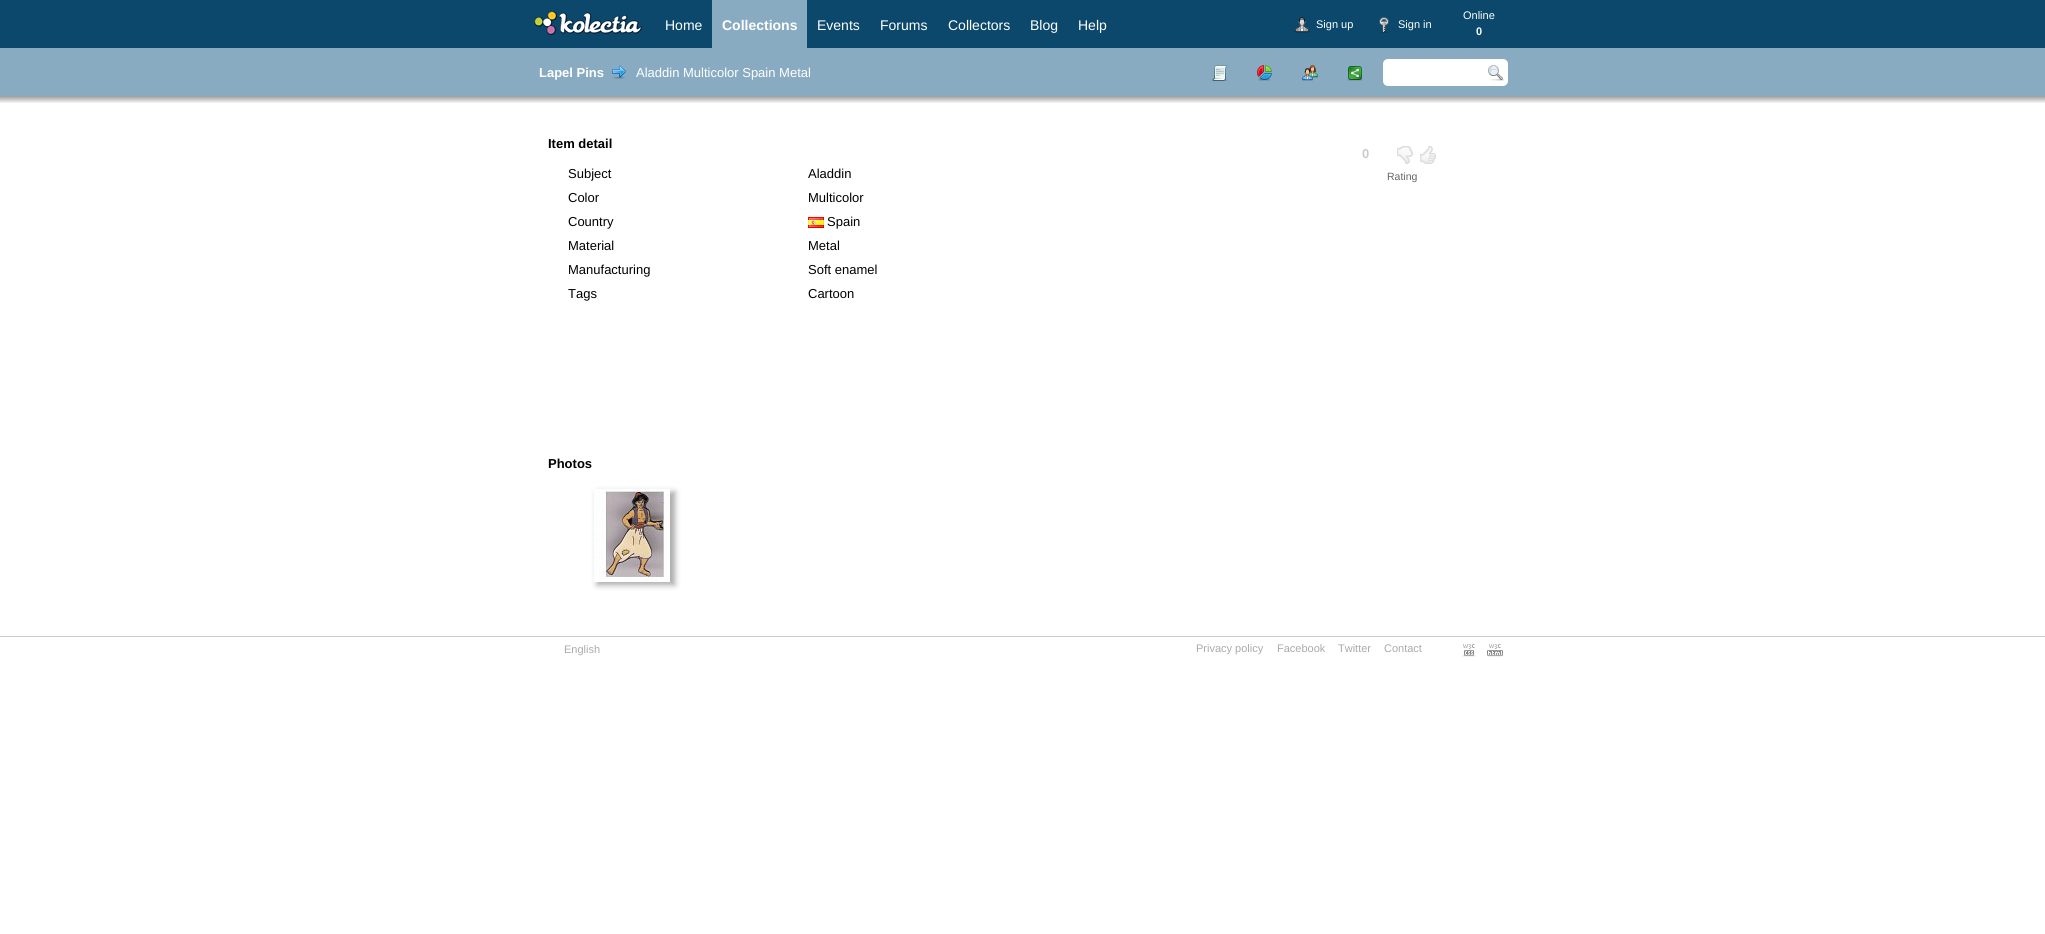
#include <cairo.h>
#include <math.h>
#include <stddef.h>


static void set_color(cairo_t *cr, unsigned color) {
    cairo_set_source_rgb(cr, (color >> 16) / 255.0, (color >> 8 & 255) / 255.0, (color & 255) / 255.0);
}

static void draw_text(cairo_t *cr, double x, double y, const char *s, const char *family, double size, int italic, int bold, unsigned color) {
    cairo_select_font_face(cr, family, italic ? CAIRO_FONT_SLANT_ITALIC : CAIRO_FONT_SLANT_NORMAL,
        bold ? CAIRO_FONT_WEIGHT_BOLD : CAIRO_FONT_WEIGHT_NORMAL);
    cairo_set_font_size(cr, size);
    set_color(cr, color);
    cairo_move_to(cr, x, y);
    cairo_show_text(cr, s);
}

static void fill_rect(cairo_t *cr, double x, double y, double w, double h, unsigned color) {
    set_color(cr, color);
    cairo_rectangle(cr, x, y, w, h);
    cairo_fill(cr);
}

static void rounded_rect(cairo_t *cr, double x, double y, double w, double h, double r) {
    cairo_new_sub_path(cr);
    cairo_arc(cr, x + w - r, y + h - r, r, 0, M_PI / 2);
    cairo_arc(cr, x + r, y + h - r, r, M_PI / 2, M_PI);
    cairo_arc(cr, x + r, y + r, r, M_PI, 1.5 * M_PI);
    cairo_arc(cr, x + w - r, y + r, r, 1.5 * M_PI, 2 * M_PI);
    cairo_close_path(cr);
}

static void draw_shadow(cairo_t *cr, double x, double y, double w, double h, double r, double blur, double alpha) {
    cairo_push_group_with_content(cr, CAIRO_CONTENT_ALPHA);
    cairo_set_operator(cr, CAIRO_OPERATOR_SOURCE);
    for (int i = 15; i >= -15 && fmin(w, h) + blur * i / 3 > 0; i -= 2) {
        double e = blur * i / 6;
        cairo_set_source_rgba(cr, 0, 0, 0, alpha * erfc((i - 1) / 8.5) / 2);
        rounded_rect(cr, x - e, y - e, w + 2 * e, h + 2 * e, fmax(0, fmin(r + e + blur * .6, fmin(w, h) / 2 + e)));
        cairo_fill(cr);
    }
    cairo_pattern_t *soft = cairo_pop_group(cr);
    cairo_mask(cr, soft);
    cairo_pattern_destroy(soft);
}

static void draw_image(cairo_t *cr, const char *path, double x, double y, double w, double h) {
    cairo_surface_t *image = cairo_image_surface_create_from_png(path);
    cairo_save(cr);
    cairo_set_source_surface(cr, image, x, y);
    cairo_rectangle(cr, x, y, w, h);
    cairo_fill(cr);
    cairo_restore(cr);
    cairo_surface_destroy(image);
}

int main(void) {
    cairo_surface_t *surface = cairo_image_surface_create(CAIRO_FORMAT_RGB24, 2045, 934);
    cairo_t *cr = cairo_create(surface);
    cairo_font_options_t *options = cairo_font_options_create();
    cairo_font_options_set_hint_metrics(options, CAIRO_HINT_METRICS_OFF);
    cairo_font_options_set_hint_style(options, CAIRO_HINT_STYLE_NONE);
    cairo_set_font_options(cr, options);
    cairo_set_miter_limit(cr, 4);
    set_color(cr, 0xFFFFFF);
    cairo_paint(cr);
    fill_rect(cr, 0, 0, 2045, 48, 0x0B486B);
    draw_image(cr, "assets/img1.png", 534, 11, 108, 24);
    draw_text(cr, 665, 30, "Home", "Liberation Sans", 14, 0, 0, 0xFFFFFF);
    fill_rect(cr, 712, 0, 95, 48, 0x88ABC2);
    draw_text(cr, 722, 30, "Collections", "Liberation Sans", 14, 0, 1, 0xFFFFFF);
    draw_text(cr, 817, 30, "Events", "Liberation Sans", 14, 0, 0, 0xFFFFFF);
    draw_text(cr, 880, 30, "Forums", "Liberation Sans", 14, 0, 0, 0xFFFFFF);
    draw_text(cr, 948, 30, "Collectors", "Liberation Sans", 14, 0, 0, 0xFFFFFF);
    draw_text(cr, 1030, 30, "Blog", "Liberation Sans", 14, 0, 0, 0xFFFFFF);
    draw_text(cr, 1078, 30, "Help", "Liberation Sans", 14, 0, 0, 0xFFFFFF);
    draw_image(cr, "assets/img2.png", 1294, 17, 16, 16);
    draw_text(cr, 1316, 28, "Sign up", "Liberation Sans", 11, 0, 0, 0xFFFFFF);
    draw_image(cr, "assets/img3.png", 1379, 17, 10, 16);
    draw_text(cr, 1398, 28, "Sign in", "Liberation Sans", 11, 0, 0, 0xFFFFFF);
    draw_text(cr, 1463, 19, "Online", "Liberation Sans", 11, 0, 0, 0xFFFFFF);
    draw_text(cr, 1476, 35, "0", "Liberation Sans", 11, 0, 1, 0xFFFFFF);
    fill_rect(cr, 0, 48, 2045, 48, 0x88ABC2);
    draw_text(cr, 539, 77, "Lapel Pins", "Liberation Sans", 13, 0, 1, 0xFFFFFF);
    draw_image(cr, "assets/img4.png", 612, 65, 14, 14);
    draw_text(cr, 636, 77, "Aladdin Multicolor Spain Metal", "Liberation Sans", 13, 0, 0, 0xFFFFFF);
    draw_image(cr, "assets/img5.png", 1212, 65, 16, 16);
    draw_image(cr, "assets/img10.png", 0, 96, 2045, 7);
    fill_rect(cr, 1198, 96, 1, 1, 0x88ABC2);
    draw_image(cr, "assets/img6.png", 1257, 65, 15, 16);
    fill_rect(cr, 1242, 96, 2, 1, 0x88ABC2);
    draw_image(cr, "assets/img7.png", 1302, 65, 16, 16);
    fill_rect(cr, 1287, 96, 2, 1, 0x88ABC2);
    draw_image(cr, "assets/img8.png", 1347, 66, 16, 15);
    fill_rect(cr, 1377, 96, 1, 1, 0x88ABC2);
    fill_rect(cr, 1332, 96, 2, 1, 0x88ABC2);
    set_color(cr, 0xFFFFFF);
    rounded_rect(cr, 1383, 59, 125, 27, 5);
    cairo_fill(cr);
    draw_image(cr, "assets/img9.png", 1488, 65, 16, 16);
    draw_text(cr, 548, 148, "Item detail", "Liberation Sans", 13, 0, 1, 0x000000);
    draw_text(cr, 568, 178, "Subject", "Liberation Sans", 13, 0, 0, 0x000000);
    draw_text(cr, 808, 178, "Aladdin", "Liberation Sans", 13, 0, 0, 0x000000);
    draw_text(cr, 568, 202, "Color", "Liberation Sans", 13, 0, 0, 0x000000);
    draw_text(cr, 808, 202, "Multicolor", "Liberation Sans", 13, 0, 0, 0x000000);
    draw_text(cr, 568, 226, "Country", "Liberation Sans", 13, 0, 0, 0x000000);
    draw_image(cr, "assets/img11.png", 808, 217, 16, 11);
    draw_text(cr, 827, 226, "Spain", "Liberation Sans", 13, 0, 0, 0x000000);
    draw_text(cr, 568, 250, "Material", "Liberation Sans", 13, 0, 0, 0x000000);
    draw_text(cr, 808, 250, "Metal", "Liberation Sans", 13, 0, 0, 0x000000);
    draw_text(cr, 568, 274, "Manufacturing", "Liberation Sans", 13, 0, 0, 0x000000);
    draw_text(cr, 808, 274, "Soft enamel", "Liberation Sans", 13, 0, 0, 0x000000);
    draw_text(cr, 568, 298, "Tags", "Liberation Sans", 13, 0, 0, 0x000000);
    draw_text(cr, 808, 298, "Cartoon", "Liberation Sans", 13, 0, 0, 0x000000);
    draw_text(cr, 1362, 158, "0", "Liberation Sans", 13, 0, 1, 0xCCCCCC);
    draw_image(cr, "assets/img12.png", 1397, 146, 16, 18);
    draw_image(cr, "assets/img13.png", 1420, 146, 16, 18);
    draw_text(cr, 1387, 180, "Rating", "Liberation Sans", 10.5, 0, 0, 0x666666);
    draw_text(cr, 548, 468, "Photos", "Liberation Sans", 13, 0, 1, 0x000000);
    set_color(cr, 0xAAAAAA);
    draw_shadow(cr, 597, 492, 78, 93, 0, 3, 1);
    draw_image(cr, "assets/img14.png", 594, 489, 76, 93);
    fill_rect(cr, 0, 636, 2045, 1, 0xCCCCCC);
    draw_text(cr, 564, 653, "English", "Liberation Sans", 11, 0, 0, 0xAAAAAA);
    draw_text(cr, 1196, 652, "Privacy policy", "Liberation Sans", 11, 0, 0, 0xAAAAAA);
    draw_text(cr, 1277, 652, "Facebook", "Liberation Sans", 11, 0, 0, 0xAAAAAA);
    draw_text(cr, 1338, 652, "Twitter", "Liberation Sans", 11, 0, 0, 0xAAAAAA);
    draw_text(cr, 1384, 652, "Contact", "Liberation Sans", 11, 0, 0, 0xAAAAAA);
    draw_image(cr, "assets/img15.png", 1462, 644, 14, 13);
    draw_image(cr, "assets/img16.png", 1487, 644, 16, 13);
    cairo_surface_write_to_png(surface, "output.png");
    cairo_font_options_destroy(options);
    cairo_destroy(cr);
    cairo_surface_destroy(surface);
    return 0;
}
